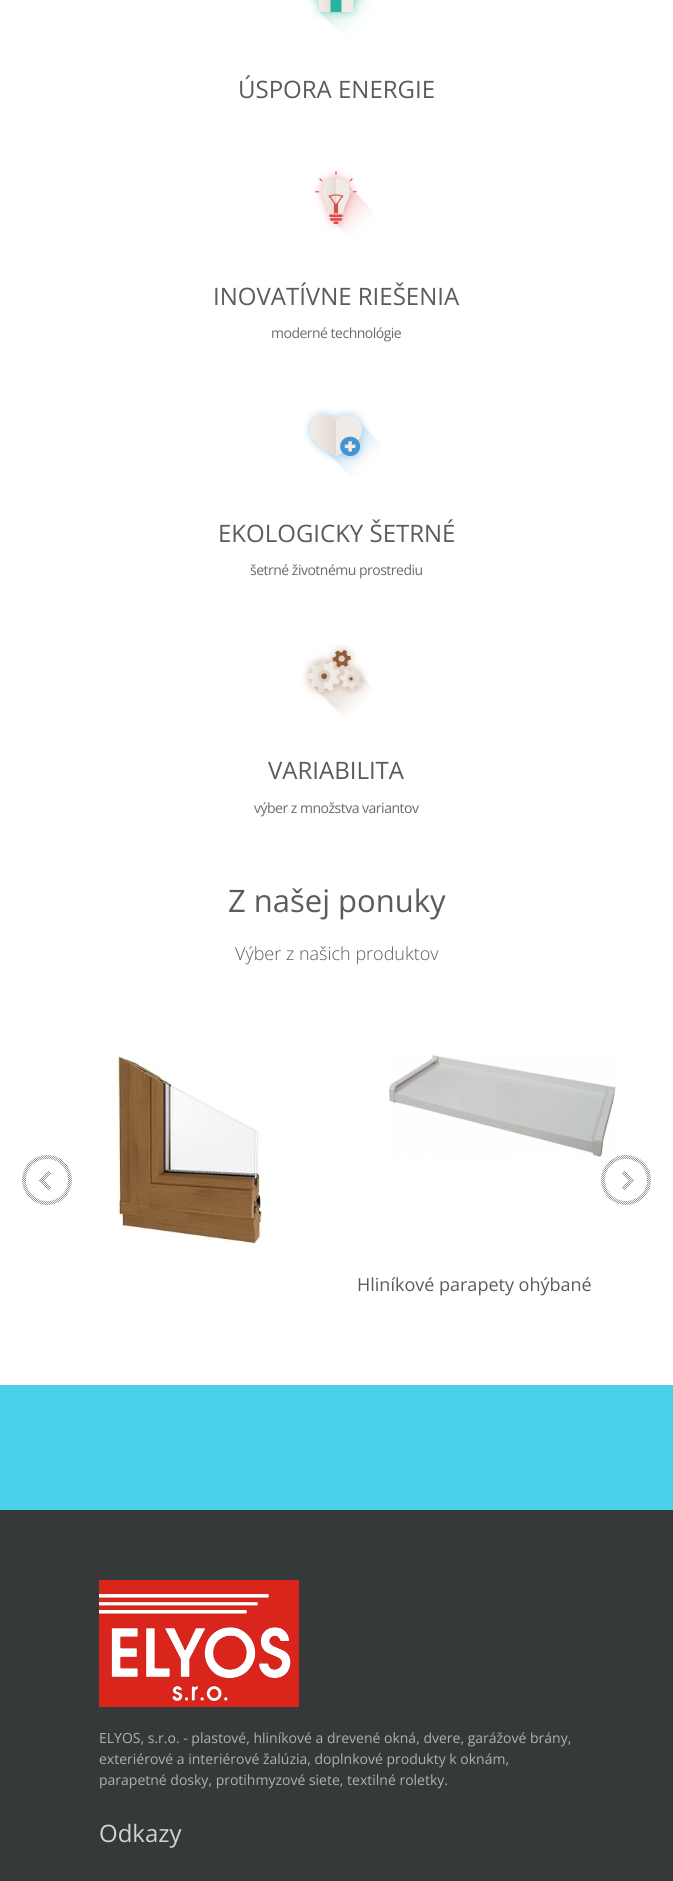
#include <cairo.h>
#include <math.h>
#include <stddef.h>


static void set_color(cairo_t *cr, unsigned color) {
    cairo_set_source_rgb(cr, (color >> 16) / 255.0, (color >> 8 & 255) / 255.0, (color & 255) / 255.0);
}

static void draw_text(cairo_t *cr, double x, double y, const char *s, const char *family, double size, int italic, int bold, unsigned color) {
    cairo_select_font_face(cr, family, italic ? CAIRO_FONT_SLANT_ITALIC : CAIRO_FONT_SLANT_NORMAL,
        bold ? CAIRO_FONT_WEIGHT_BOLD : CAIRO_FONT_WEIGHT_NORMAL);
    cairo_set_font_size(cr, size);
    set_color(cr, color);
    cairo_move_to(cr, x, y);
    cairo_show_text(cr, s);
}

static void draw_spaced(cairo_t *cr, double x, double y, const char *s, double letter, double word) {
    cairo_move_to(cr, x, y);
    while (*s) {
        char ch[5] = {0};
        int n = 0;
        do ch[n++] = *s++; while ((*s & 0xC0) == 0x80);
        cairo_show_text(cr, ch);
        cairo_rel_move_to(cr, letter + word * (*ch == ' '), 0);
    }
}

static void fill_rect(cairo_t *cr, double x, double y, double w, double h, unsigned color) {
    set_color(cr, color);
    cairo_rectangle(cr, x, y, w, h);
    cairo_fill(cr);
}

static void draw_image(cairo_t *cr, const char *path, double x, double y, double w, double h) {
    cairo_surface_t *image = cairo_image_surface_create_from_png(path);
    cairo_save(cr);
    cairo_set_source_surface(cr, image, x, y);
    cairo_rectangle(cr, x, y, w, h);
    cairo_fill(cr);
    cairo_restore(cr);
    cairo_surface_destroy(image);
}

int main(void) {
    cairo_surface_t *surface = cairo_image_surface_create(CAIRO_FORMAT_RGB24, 673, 1881);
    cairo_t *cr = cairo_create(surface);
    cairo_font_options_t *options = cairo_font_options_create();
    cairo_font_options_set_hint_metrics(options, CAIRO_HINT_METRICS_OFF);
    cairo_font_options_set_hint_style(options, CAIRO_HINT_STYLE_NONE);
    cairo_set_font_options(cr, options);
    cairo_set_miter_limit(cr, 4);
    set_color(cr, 0xFFFFFF);
    cairo_paint(cr);
    draw_image(cr, "assets/img1.png", 308, 0, 64, 35);
    draw_text(cr, 238, 98, "ÚSPORA ENERGIE", "Open Sans", 24, 0, 0, 0x5B5B5B);
    draw_image(cr, "assets/img2.png", 315, 170, 58, 66);
    draw_text(cr, 213, 305, "INOVATÍVNE RIEŠENIA", "Open Sans", 24, 0, 0, 0x5B5B5B);
    cairo_set_font_size(cr, 14);
    set_color(cr, 0x6A6A6A);
    draw_spaced(cr, 271, 338, "moderné technológie", -0.5, 0);
    draw_image(cr, "assets/img3.png", 304, 409, 78, 67);
    draw_text(cr, 218, 542, "EKOLOGICKY ŠETRNÉ", "Open Sans", 24, 0, 0, 0x5B5B5B);
    cairo_set_font_size(cr, 14);
    set_color(cr, 0x6A6A6A);
    draw_spaced(cr, 250, 575, "šetrné životnému prostrediu", -0.5, 0);
    draw_image(cr, "assets/img4.png", 302, 644, 72, 74);
    draw_text(cr, 268, 779, "VARIABILITA", "Open Sans", 24, 0, 0, 0x5B5B5B);
    cairo_set_font_size(cr, 14);
    set_color(cr, 0x6A6A6A);
    draw_spaced(cr, 254, 813, "výber z množstva variantov", -0.5, 0);
    draw_text(cr, 228, 912, "Z našej ponuky", "Open Sans", 31, 0, 0, 0x5B5B5B);
    draw_text(cr, 235, 960, "Výber z našich produktov", "Open Sans Light", 18, 0, 0, 0x5B5B5B);
    draw_image(cr, "assets/img7.png", 43, 1053, 220, 232);
    draw_image(cr, "assets/img5.png", 22, 1155, 50, 50);
    draw_image(cr, "assets/img8.png", 389, 1054, 227, 103);
    draw_image(cr, "assets/img6.png", 601, 1155, 50, 50);
    draw_text(cr, 357, 1291, "Hliníkové parapety ohýbané", "Open Sans", 18, 0, 0, 0x5B5B5B);
    fill_rect(cr, 0, 1385, 673, 125, 0x4BD0EA);
    fill_rect(cr, 0, 1510, 673, 371, 0x35393A);
    draw_image(cr, "assets/img9.png", 99, 1580, 200, 127);
    draw_text(cr, 99, 1743, "ELYOS, s.r.o. - plastové, hliníkové a drevené okná, dvere, garážové brány,", "Open Sans", 14, 0, 0, 0xB0B0B0);
    draw_text(cr, 99, 1764, "exteriérové a interiérové žalúzia, doplnkové produkty k oknám,", "Open Sans", 14, 0, 0, 0xB0B0B0);
    draw_text(cr, 99, 1785, "parapetné dosky, protihmyzové siete, textilné roletky.", "Open Sans", 14, 0, 0, 0xB0B0B0);
    draw_text(cr, 99, 1842, "Odkazy", "Open Sans", 24, 0, 0, 0xD2D2D2);
    cairo_surface_write_to_png(surface, "output.png");
    cairo_font_options_destroy(options);
    cairo_destroy(cr);
    cairo_surface_destroy(surface);
    return 0;
}
